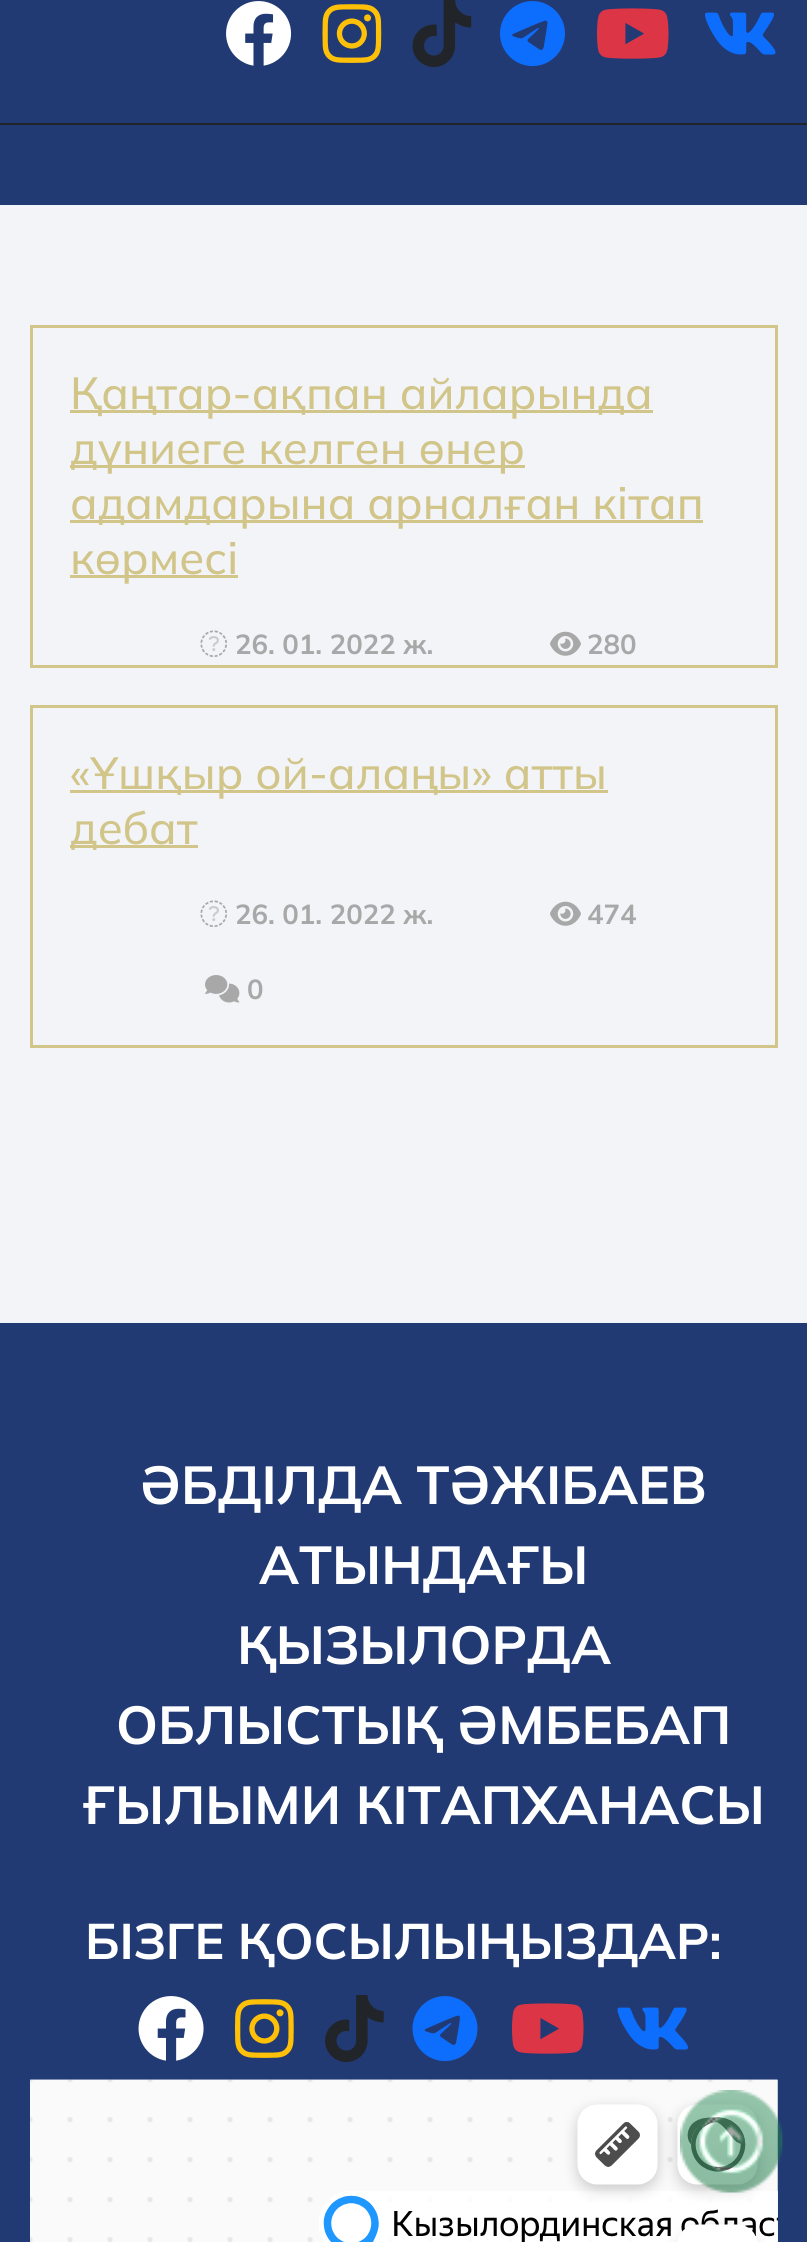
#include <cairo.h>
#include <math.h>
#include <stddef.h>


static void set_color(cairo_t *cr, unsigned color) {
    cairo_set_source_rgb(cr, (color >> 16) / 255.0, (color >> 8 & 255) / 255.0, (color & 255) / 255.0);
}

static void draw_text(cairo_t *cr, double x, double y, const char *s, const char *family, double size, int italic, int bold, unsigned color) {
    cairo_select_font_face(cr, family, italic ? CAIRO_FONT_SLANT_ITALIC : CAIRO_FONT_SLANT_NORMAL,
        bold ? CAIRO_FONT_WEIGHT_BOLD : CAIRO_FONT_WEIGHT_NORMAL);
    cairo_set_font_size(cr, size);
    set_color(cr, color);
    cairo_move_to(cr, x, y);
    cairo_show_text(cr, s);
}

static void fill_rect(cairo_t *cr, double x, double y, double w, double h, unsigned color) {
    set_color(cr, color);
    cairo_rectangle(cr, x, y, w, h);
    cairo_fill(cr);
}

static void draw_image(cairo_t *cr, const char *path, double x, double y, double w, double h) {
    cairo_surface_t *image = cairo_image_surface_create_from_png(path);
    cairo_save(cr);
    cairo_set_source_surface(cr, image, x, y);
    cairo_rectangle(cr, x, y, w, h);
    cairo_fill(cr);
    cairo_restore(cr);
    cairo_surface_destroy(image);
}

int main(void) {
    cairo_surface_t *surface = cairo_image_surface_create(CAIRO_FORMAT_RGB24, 807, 2242);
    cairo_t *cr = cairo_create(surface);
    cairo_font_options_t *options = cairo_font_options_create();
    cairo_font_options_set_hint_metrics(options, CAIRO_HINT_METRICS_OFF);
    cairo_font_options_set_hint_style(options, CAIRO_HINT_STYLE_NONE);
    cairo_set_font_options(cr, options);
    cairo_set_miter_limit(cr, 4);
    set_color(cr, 0xF3F4F8);
    cairo_paint(cr);
    fill_rect(cr, 0, 0, 807, 123, 0x223A74);
    fill_rect(cr, 0, 123, 807, 2, 0x212529);
    draw_image(cr, "assets/img1.png", 226, 1, 66, 65);
    draw_image(cr, "assets/img2.png", 322, 4, 60, 59);
    draw_image(cr, "assets/img3.png", 412, 0, 60, 68);
    draw_image(cr, "assets/img4.png", 500, 1, 65, 66);
    draw_image(cr, "assets/img5.png", 596, 8, 73, 51);
    draw_image(cr, "assets/img6.png", 705, 12, 71, 43);
    fill_rect(cr, 0, 125, 807, 80, 0x223A74);
    cairo_rectangle(cr, 31.5, 326.5, 745, 340);
    set_color(cr, 0xD1C589);
    cairo_set_line_width(cr, 3);
    cairo_stroke(cr);
    fill_rect(cr, 70, 410, 583, 3, 0xD1C589);
    draw_text(cr, 70, 409, "Қаңтар-ақпан айларында", "Mulish Medium", 45, 0, 0, 0xD1C589);
    fill_rect(cr, 70, 465, 455, 3, 0xD1C589);
    draw_text(cr, 70, 464, "дүниеге келген өнер", "Mulish Medium", 45, 0, 0, 0xD1C589);
    fill_rect(cr, 70, 520, 633, 3, 0xD1C589);
    draw_text(cr, 70, 519, "адамдарына арналған кітап", "Mulish Medium", 45, 0, 0, 0xD1C589);
    fill_rect(cr, 70, 575, 168, 3, 0xD1C589);
    draw_text(cr, 70, 574, "көрмесі", "Mulish Medium", 45, 0, 0, 0xD1C589);
    draw_image(cr, "assets/img7.png", 200, 630, 27, 27);
    draw_text(cr, 235, 654, "26. 01. 2022 ж.", "Mulish", 27.5, 0, 1, 0xA8A8A8);
    draw_image(cr, "assets/img8.png", 550, 631, 31, 25);
    draw_text(cr, 587, 654, "280", "Mulish", 27.5, 0, 1, 0xA8A8A8);
    cairo_rectangle(cr, 31.5, 706.5, 745, 340);
    set_color(cr, 0xD1C589);
    cairo_stroke(cr);
    fill_rect(cr, 70, 790, 538, 3, 0xD1C589);
    draw_text(cr, 70, 789, "«Ұшқыр ой-алаңы» атты", "Mulish Medium", 45, 0, 0, 0xD1C589);
    fill_rect(cr, 70, 845, 128, 3, 0xD1C589);
    draw_text(cr, 70, 844, "дебат", "Mulish Medium", 45, 0, 0, 0xD1C589);
    draw_image(cr, "assets/img7.png", 200, 900, 27, 27);
    draw_text(cr, 235, 924, "26. 01. 2022 ж.", "Mulish", 27.5, 0, 1, 0xA8A8A8);
    draw_image(cr, "assets/img8.png", 550, 901, 31, 25);
    draw_text(cr, 587, 924, "474", "Mulish", 27.5, 0, 1, 0xA8A8A8);
    draw_image(cr, "assets/img9.png", 205, 975, 35, 28);
    draw_text(cr, 247, 999, "0", "Mulish", 27.5, 0, 1, 0xA8A8A8);
    fill_rect(cr, 0, 1323, 807, 919, 0x223A74);
    draw_text(cr, 140, 1504, "ӘБДІЛДА ТӘЖІБАЕВ", "Mulish", 53.4, 0, 1, 0xFFFFFF);
    draw_text(cr, 259, 1584, "АТЫНДАҒЫ", "Mulish", 53.4, 0, 1, 0xFFFFFF);
    draw_text(cr, 237, 1664, "ҚЫЗЫЛОРДА", "Mulish", 53.4, 0, 1, 0xFFFFFF);
    draw_text(cr, 116, 1744, "ОБЛЫСТЫҚ ӘМБЕБАП", "Mulish", 53.4, 0, 1, 0xFFFFFF);
    draw_text(cr, 82, 1824, "ҒЫЛЫМИ КІТАПХАНАСЫ", "Mulish", 53.4, 0, 1, 0xFFFFFF);
    draw_text(cr, 85, 1959, "БІЗГЕ ҚОСЫЛЫҢЫЗДАР:", "Mulish", 50, 0, 1, 0xFFFFFF);
    draw_image(cr, "assets/img10.png", 138, 1996, 66, 65);
    draw_image(cr, "assets/img11.png", 235, 1999, 59, 59);
    draw_image(cr, "assets/img12.png", 325, 1995, 59, 68);
    draw_image(cr, "assets/img13.png", 412, 1996, 66, 65);
    draw_image(cr, "assets/img5.png", 511, 2003, 73, 51);
    draw_image(cr, "assets/img14.png", 617, 2007, 71, 43);
    draw_image(cr, "assets/img15.png", 30, 2079, 748, 163);
    draw_image(cr, "assets/img16.png", 680, 2090, 103, 103);
    cairo_surface_write_to_png(surface, "output.png");
    cairo_font_options_destroy(options);
    cairo_destroy(cr);
    cairo_surface_destroy(surface);
    return 0;
}
